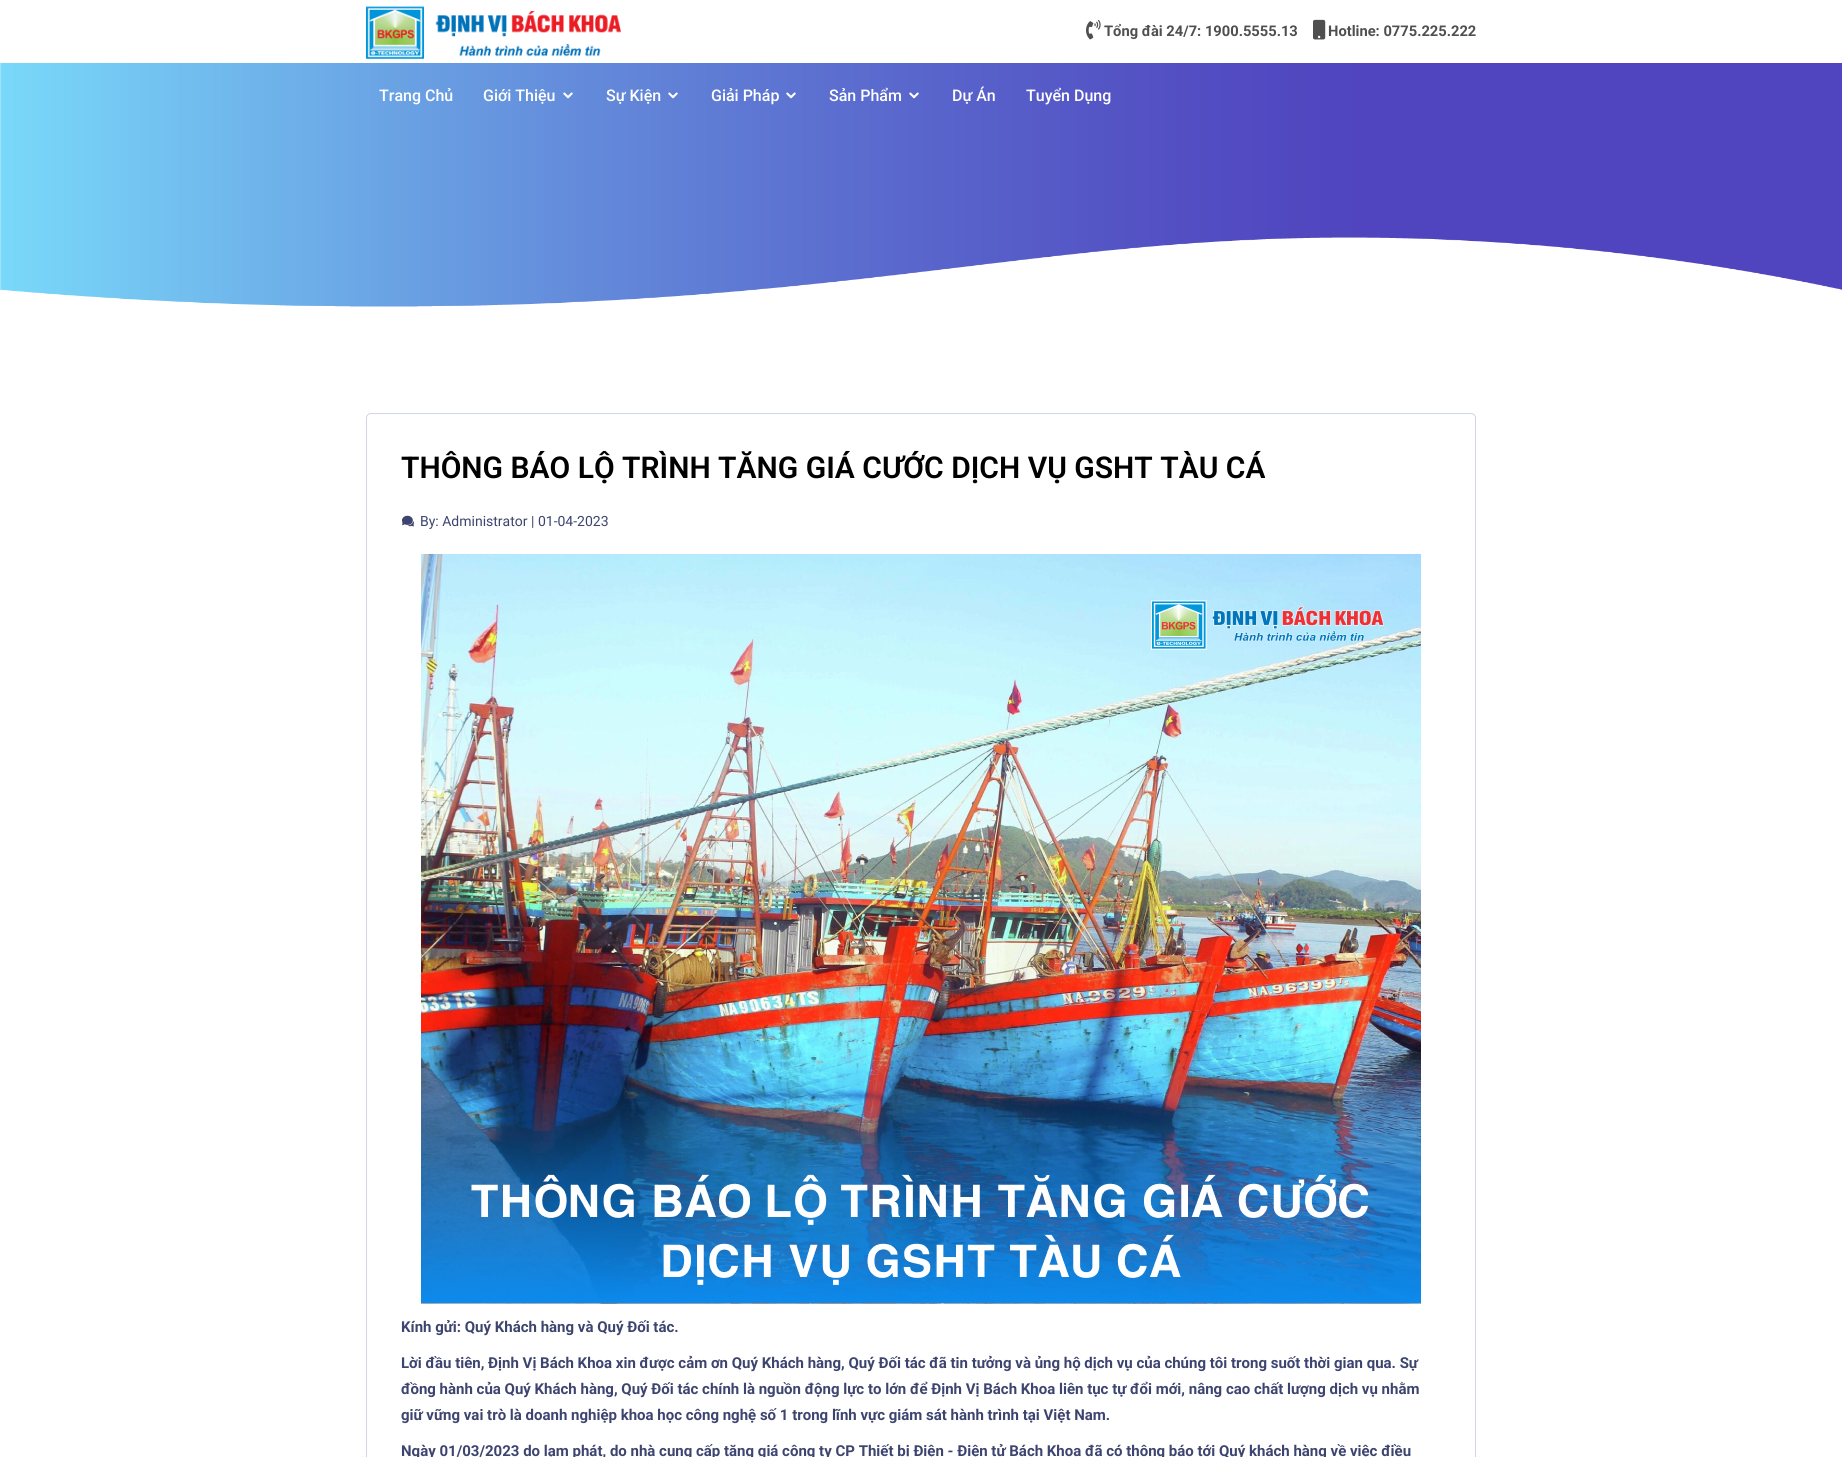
#include <cairo.h>
#include <math.h>
#include <stddef.h>


static void set_color(cairo_t *cr, unsigned color) {
    cairo_set_source_rgb(cr, (color >> 16) / 255.0, (color >> 8 & 255) / 255.0, (color & 255) / 255.0);
}

static void draw_text(cairo_t *cr, double x, double y, const char *s, const char *family, double size, int italic, int bold, unsigned color) {
    cairo_select_font_face(cr, family, italic ? CAIRO_FONT_SLANT_ITALIC : CAIRO_FONT_SLANT_NORMAL,
        bold ? CAIRO_FONT_WEIGHT_BOLD : CAIRO_FONT_WEIGHT_NORMAL);
    cairo_set_font_size(cr, size);
    set_color(cr, color);
    cairo_move_to(cr, x, y);
    cairo_show_text(cr, s);
}

static void rounded_rect(cairo_t *cr, double x, double y, double w, double h, double r) {
    cairo_new_sub_path(cr);
    cairo_arc(cr, x + w - r, y + h - r, r, 0, M_PI / 2);
    cairo_arc(cr, x + r, y + h - r, r, M_PI / 2, M_PI);
    cairo_arc(cr, x + r, y + r, r, M_PI, 1.5 * M_PI);
    cairo_arc(cr, x + w - r, y + r, r, 1.5 * M_PI, 2 * M_PI);
    cairo_close_path(cr);
}

static void draw_image(cairo_t *cr, const char *path, double x, double y, double w, double h) {
    cairo_surface_t *image = cairo_image_surface_create_from_png(path);
    cairo_save(cr);
    cairo_set_source_surface(cr, image, x, y);
    cairo_rectangle(cr, x, y, w, h);
    cairo_fill(cr);
    cairo_restore(cr);
    cairo_surface_destroy(image);
}

int main(void) {
    cairo_surface_t *surface = cairo_image_surface_create(CAIRO_FORMAT_RGB24, 1842, 1457);
    cairo_t *cr = cairo_create(surface);
    cairo_font_options_t *options = cairo_font_options_create();
    cairo_font_options_set_hint_metrics(options, CAIRO_HINT_METRICS_OFF);
    cairo_font_options_set_hint_style(options, CAIRO_HINT_STYLE_NONE);
    cairo_set_font_options(cr, options);
    cairo_set_miter_limit(cr, 4);
    set_color(cr, 0xFFFFFF);
    cairo_paint(cr);
    draw_image(cr, "assets/img1.png", 366, 6, 255, 53);
    draw_image(cr, "assets/img2.png", 1086, 19, 15, 21);
    draw_text(cr, 1104, 36, "Tổng đài 24/7: 1900.5555.13", "Roboto", 14.7, 0, 1, 0x4F4F4F);
    draw_image(cr, "assets/img3.png", 1313, 19, 13, 21);
    draw_text(cr, 1328, 36, "Hotline: 0775.225.222", "Roboto", 14.7, 0, 1, 0x4F4F4F);
    draw_image(cr, "assets/img8.png", 0, 63, 1842, 244);
    draw_text(cr, 379, 101, "Trang Chủ", "Roboto Medium", 16, 0, 0, 0xFFFFFF);
    draw_text(cr, 483, 101, "Giới Thiệu", "Roboto Medium", 16, 0, 0, 0xFFFFFF);
    draw_image(cr, "assets/img4.png", 563, 92, 10, 7);
    draw_text(cr, 606, 101, "Sự Kiện", "Roboto Medium", 16, 0, 0, 0xFFFFFF);
    draw_image(cr, "assets/img5.png", 668, 92, 10, 7);
    draw_text(cr, 711, 101, "Giải Pháp", "Roboto Medium", 16, 0, 0, 0xFFFFFF);
    draw_image(cr, "assets/img6.png", 786, 92, 10, 7);
    draw_text(cr, 829, 101, "Sản Phẩm", "Roboto Medium", 16, 0, 0, 0xFFFFFF);
    draw_image(cr, "assets/img7.png", 909, 92, 10, 7);
    draw_text(cr, 952, 101, "Dự Án", "Roboto Medium", 16, 0, 0, 0xFFFFFF);
    draw_text(cr, 1026, 101, "Tuyển Dụng", "Roboto Medium", 16, 0, 0, 0xFFFFFF);
    rounded_rect(cr, 366.5, 413.5, 1109, 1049, 4.5);
    set_color(cr, 0xCFD7DF);
    cairo_set_line_width(cr, 1);
    cairo_stroke(cr);
    draw_text(cr, 401, 478, "THÔNG BÁO LỘ TRÌNH TĂNG GIÁ CƯỚC DỊCH VỤ GSHT TÀU CÁ", "Roboto SemiBold", 30, 0, 0, 0x000000);
    draw_image(cr, "assets/img9.png", 402, 515, 12, 12);
    draw_text(cr, 420, 526, "By: Administrator | 01-04-2023", "Roboto", 14, 0, 0, 0x3D446F);
    draw_image(cr, "assets/img10.png", 421, 554, 1000, 750);
    draw_text(cr, 401, 1332, "Kính gửi: Quý Khách hàng và Quý Đối tác.", "Roboto", 15, 0, 1, 0x3D446F);
    draw_text(cr, 401, 1368, "Lời đầu tiên, Định Vị Bách Khoa xin được cảm ơn Quý Khách hàng, Quý Đối tác đã tin tưởng và ủng hộ dịch vụ của chúng tôi trong suốt thời gian qua. Sự", "Roboto", 15, 0, 1, 0x3D446F);
    draw_text(cr, 401, 1394, "đồng hành của Quý Khách hàng, Quý Đối tác chính là nguồn động lực to lớn để Định Vị Bách Khoa liên tục tự đổi mới, nâng cao chất lượng dịch vụ nhằm", "Roboto", 15, 0, 1, 0x3D446F);
    draw_text(cr, 401, 1420, "giữ vững vai trò là doanh nghiệp khoa học công nghệ số 1 trong lĩnh vực giám sát hành trình tại Việt Nam.", "Roboto", 15, 0, 1, 0x3D446F);
    draw_text(cr, 401, 1456, "Ngày 01/03/2023 do lạm phát, do nhà cung cấp tăng giá công ty CP Thiết bị Điện - Điện tử Bách Khoa đã có thông báo tới Quý khách hàng về việc điều", "Roboto", 15, 0, 1, 0x3D446F);
    cairo_surface_write_to_png(surface, "output.png");
    cairo_font_options_destroy(options);
    cairo_destroy(cr);
    cairo_surface_destroy(surface);
    return 0;
}
